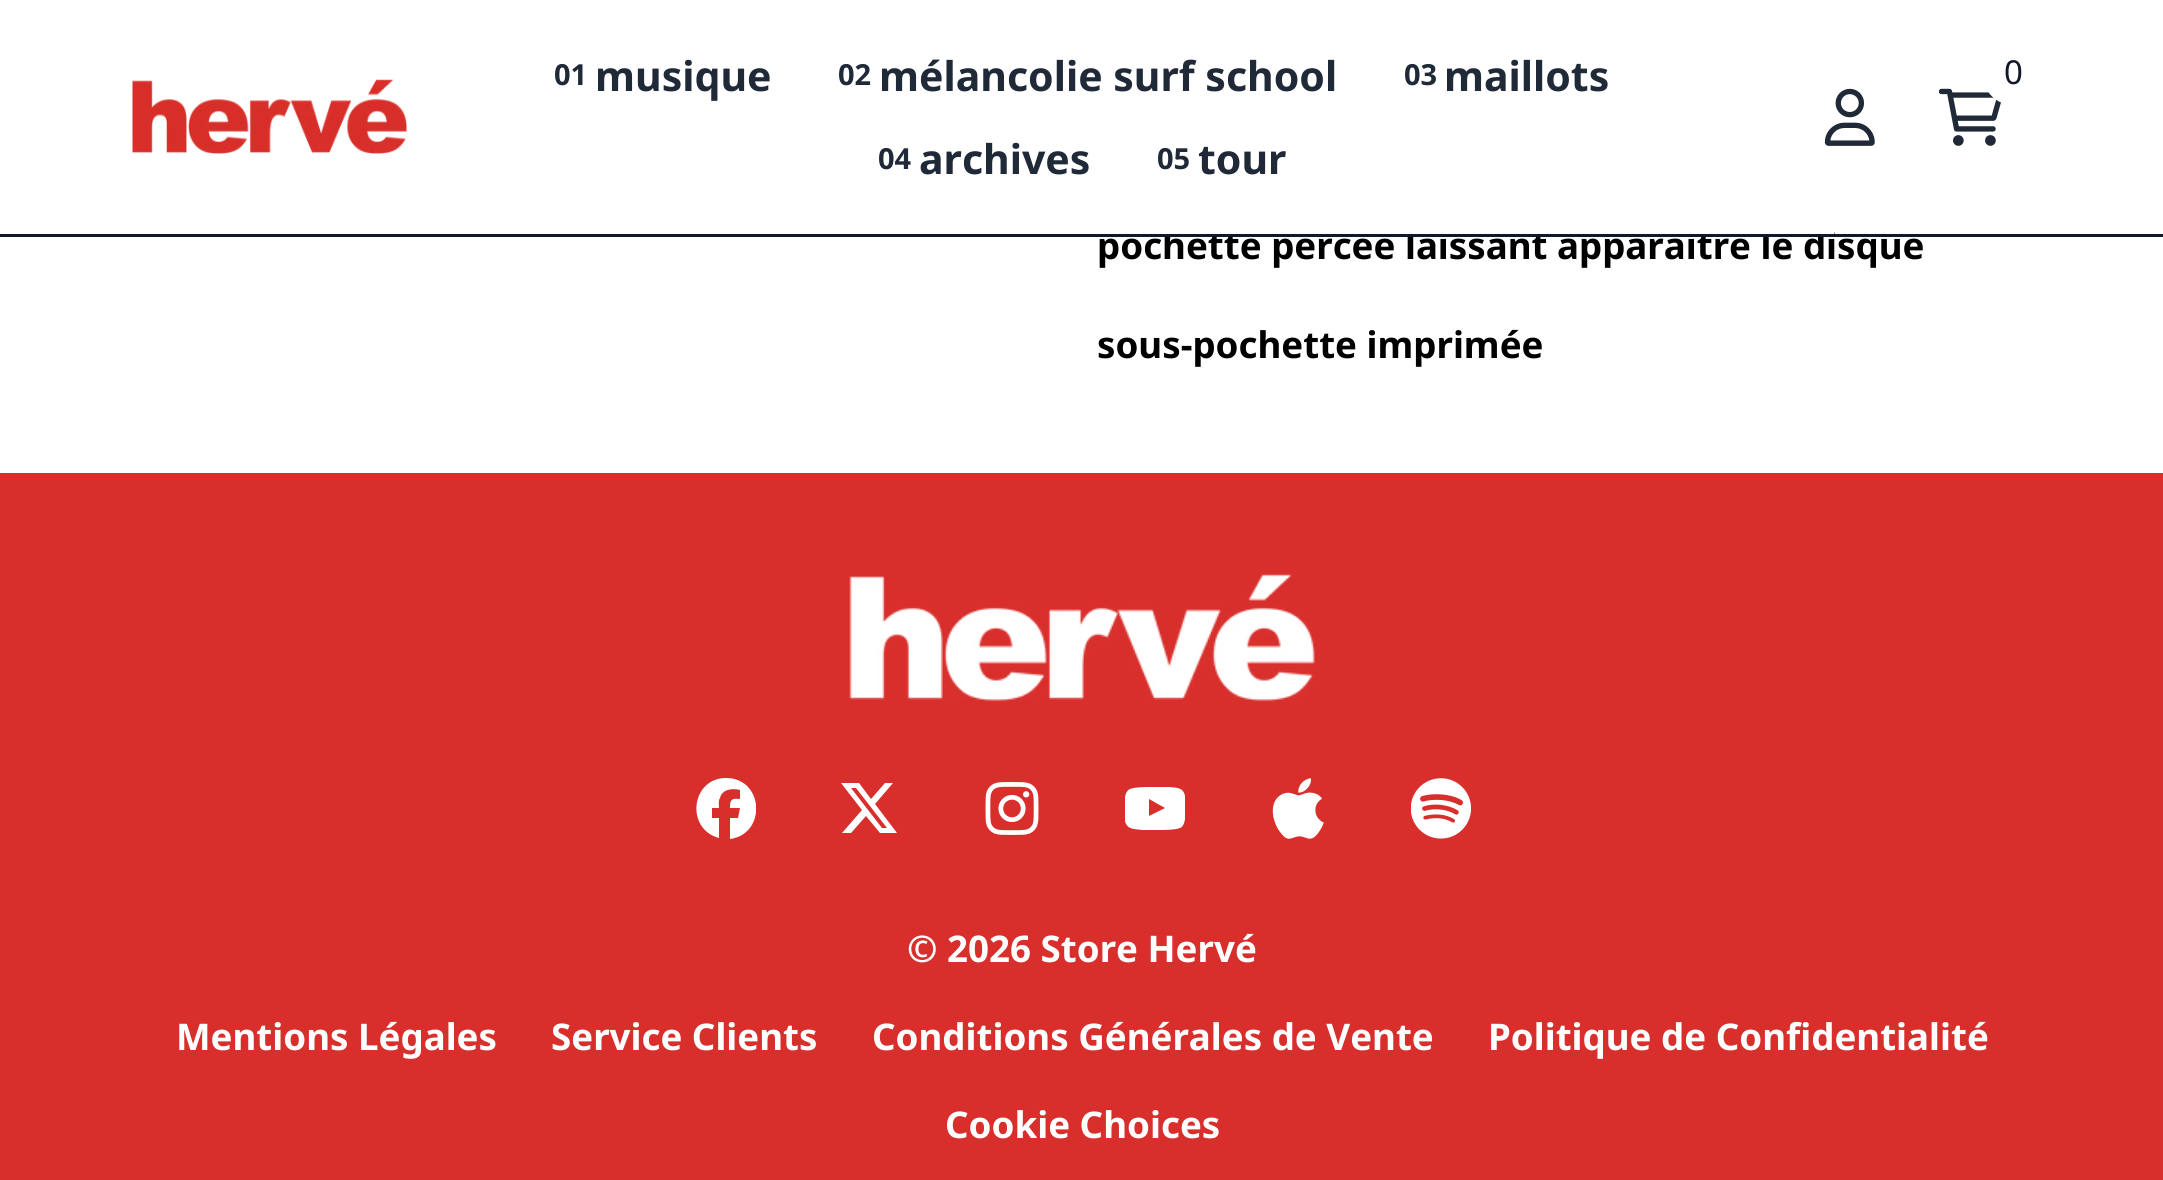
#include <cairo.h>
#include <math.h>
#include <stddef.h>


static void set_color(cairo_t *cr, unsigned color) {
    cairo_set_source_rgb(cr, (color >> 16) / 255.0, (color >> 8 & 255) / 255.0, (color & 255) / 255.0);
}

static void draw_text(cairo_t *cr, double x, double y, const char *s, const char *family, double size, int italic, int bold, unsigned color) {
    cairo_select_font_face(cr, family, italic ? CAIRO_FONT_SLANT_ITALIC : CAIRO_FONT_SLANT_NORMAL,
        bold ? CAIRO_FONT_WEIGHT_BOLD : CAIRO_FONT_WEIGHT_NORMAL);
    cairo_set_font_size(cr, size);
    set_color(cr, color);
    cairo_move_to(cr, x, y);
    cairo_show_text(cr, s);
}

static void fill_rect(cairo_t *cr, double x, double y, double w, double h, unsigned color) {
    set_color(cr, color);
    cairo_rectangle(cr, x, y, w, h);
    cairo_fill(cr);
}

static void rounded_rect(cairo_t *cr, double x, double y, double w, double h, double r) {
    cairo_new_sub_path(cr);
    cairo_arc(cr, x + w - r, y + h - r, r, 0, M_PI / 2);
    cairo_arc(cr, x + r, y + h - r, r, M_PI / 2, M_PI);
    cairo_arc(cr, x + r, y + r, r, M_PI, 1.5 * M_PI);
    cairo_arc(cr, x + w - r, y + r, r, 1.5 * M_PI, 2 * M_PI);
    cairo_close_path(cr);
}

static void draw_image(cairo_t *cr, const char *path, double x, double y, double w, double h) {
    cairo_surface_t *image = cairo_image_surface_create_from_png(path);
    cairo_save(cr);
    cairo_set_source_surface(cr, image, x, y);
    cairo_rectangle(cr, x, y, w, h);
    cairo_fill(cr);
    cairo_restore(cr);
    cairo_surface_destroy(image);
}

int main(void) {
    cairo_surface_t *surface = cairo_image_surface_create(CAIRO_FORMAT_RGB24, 2163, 1180);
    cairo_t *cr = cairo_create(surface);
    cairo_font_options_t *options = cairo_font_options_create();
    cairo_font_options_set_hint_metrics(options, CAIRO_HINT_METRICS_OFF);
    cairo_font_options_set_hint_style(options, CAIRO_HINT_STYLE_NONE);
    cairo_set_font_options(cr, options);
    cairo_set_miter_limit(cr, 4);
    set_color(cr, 0xFFFFFF);
    cairo_paint(cr);
    draw_text(cr, 1097, 259, "pochette percée laissant apparaître le disque", "Noto Sans", 36.7, 0, 1, 0x000000);
    fill_rect(cr, 1164, 230, 670, 4, 0xFFFFFF);
    fill_rect(cr, 0, 234, 2163, 3, 0x111827);
    draw_text(cr, 554, 85, "01", "Noto Sans", 29, 0, 1, 0x1F2937);
    draw_text(cr, 595, 91, "musique", "Noto Sans", 41, 0, 1, 0x1F2937);
    draw_text(cr, 838, 85, "02", "Noto Sans", 29, 0, 1, 0x1F2937);
    draw_text(cr, 879, 91, "mélancolie surf school", "Noto Sans", 41, 0, 1, 0x1F2937);
    draw_text(cr, 1404, 85, "03", "Noto Sans", 29, 0, 1, 0x1F2937);
    draw_text(cr, 1444, 91, "maillots", "Noto Sans", 41, 0, 1, 0x1F2937);
    draw_text(cr, 878, 169, "04", "Noto Sans", 29, 0, 1, 0x1F2937);
    draw_text(cr, 919, 174, "archives", "Noto Sans", 41, 0, 1, 0x1F2937);
    draw_text(cr, 1157, 169, "05", "Noto Sans", 29, 0, 1, 0x1F2937);
    draw_text(cr, 1198, 174, "tour", "Noto Sans", 41, 0, 1, 0x1F2937);
    draw_image(cr, "assets/img1.png", 1939, 88, 62, 58);
    set_color(cr, 0xFFFFFF);
    rounded_rect(cr, 1983, 44, 60, 61, 30);
    cairo_fill(cr);
    draw_text(cr, 2004, 84, "0", "Noto Sans", 33, 0, 0, 0x111827);
    draw_image(cr, "assets/img2.png", 1824, 88, 51, 58);
    draw_image(cr, "assets/img3.png", 132, 79, 275, 75);
    draw_text(cr, 1097, 358, "sous-pochette imprimée", "Noto Sans", 36.7, 0, 1, 0x000000);
    fill_rect(cr, 0, 473, 2163, 707, 0xD82F2C);
    draw_image(cr, "assets/img4.png", 849, 573, 466, 129);
    cairo_save(cr);
    cairo_rectangle(cr, 696, 778, 60, 61);
    cairo_clip(cr);
    set_color(cr, 0xFFFFFF);
    cairo_new_path(cr);
    cairo_move_to(cr, 726, 778);
    cairo_curve_to(cr, 691, 778, 685, 829, 719, 838);
    cairo_line_to(cr, 719, 818);
    cairo_line_to(cr, 712, 818);
    cairo_line_to(cr, 712, 808);
    cairo_line_to(cr, 719, 808);
    cairo_curve_to(cr, 719, 805, 718, 801, 720, 798);
    cairo_curve_to(cr, 722, 789, 733, 788, 740, 790);
    cairo_line_to(cr, 740, 799);
    cairo_curve_to(cr, 731, 798, 730, 800, 730, 808);
    cairo_line_to(cr, 740, 808);
    cairo_line_to(cr, 738, 818);
    cairo_line_to(cr, 730, 818);
    cairo_line_to(cr, 730, 839);
    cairo_curve_to(cr, 767, 834, 764, 778, 726, 778);
    cairo_close_path(cr);
    cairo_fill(cr);
    cairo_restore(cr);
    set_color(cr, 0xFFFFFF);
    cairo_new_path(cr);
    cairo_move_to(cr, 885, 783);
    cairo_line_to(cr, 893, 783);
    cairo_line_to(cr, 875, 804);
    cairo_line_to(cr, 897, 833);
    cairo_line_to(cr, 880, 833);
    cairo_line_to(cr, 866, 816);
    cairo_line_to(cr, 851, 833);
    cairo_line_to(cr, 842, 833);
    cairo_line_to(cr, 862, 810);
    cairo_line_to(cr, 841, 783);
    cairo_line_to(cr, 859, 783);
    cairo_line_to(cr, 871, 799);
    cairo_close_path(cr);
    cairo_move_to(cr, 882, 828);
    cairo_line_to(cr, 887, 828);
    cairo_line_to(cr, 856, 788);
    cairo_line_to(cr, 851, 788);
    cairo_close_path(cr);
    cairo_fill(cr);
    draw_image(cr, "assets/img5.png", 985, 782, 54, 53);
    cairo_save(cr);
    cairo_rectangle(cr, 1125, 778, 60, 61);
    cairo_clip(cr);
    cairo_new_path(cr);
    cairo_move_to(cr, 1185, 796);
    cairo_curve_to(cr, 1183, 787, 1177, 788, 1169, 787);
    cairo_line_to(cr, 1151, 787);
    cairo_curve_to(cr, 1145, 787, 1135, 787, 1130, 789);
    cairo_curve_to(cr, 1122, 792, 1124, 814, 1125, 821);
    cairo_curve_to(cr, 1127, 830, 1135, 829, 1143, 830);
    cairo_line_to(cr, 1159, 830);
    cairo_curve_to(cr, 1165, 830, 1175, 830, 1180, 828);
    cairo_curve_to(cr, 1188, 825, 1185, 803, 1185, 796);
    cairo_close_path(cr);
    cairo_move_to(cr, 1149, 816);
    cairo_line_to(cr, 1149, 799);
    cairo_line_to(cr, 1165, 808);
    cairo_close_path(cr);
    cairo_fill(cr);
    cairo_restore(cr);
    draw_image(cr, "assets/img6.png", 1272, 778, 52, 61);
    draw_image(cr, "assets/img7.png", 1411, 778, 60, 61);
    draw_text(cr, 907, 962, "© 2026 Store Hervé", "Noto Sans", 36.7, 0, 1, 0xFFFFFF);
    draw_text(cr, 176, 1050, "Mentions Légales", "Noto Sans", 36.7, 0, 1, 0xFFFFFF);
    draw_text(cr, 551, 1050, "Service Clients", "Noto Sans", 36.7, 0, 1, 0xFFFFFF);
    draw_text(cr, 872, 1050, "Conditions Générales de Vente", "Noto Sans", 36.7, 0, 1, 0xFFFFFF);
    draw_text(cr, 1488, 1050, "Politique de Confidentialité", "Noto Sans", 36.7, 0, 1, 0xFFFFFF);
    draw_text(cr, 945, 1138, "Cookie Choices", "Noto Sans", 36.7, 0, 1, 0xFFFFFF);
    cairo_surface_write_to_png(surface, "output.png");
    cairo_font_options_destroy(options);
    cairo_destroy(cr);
    cairo_surface_destroy(surface);
    return 0;
}
